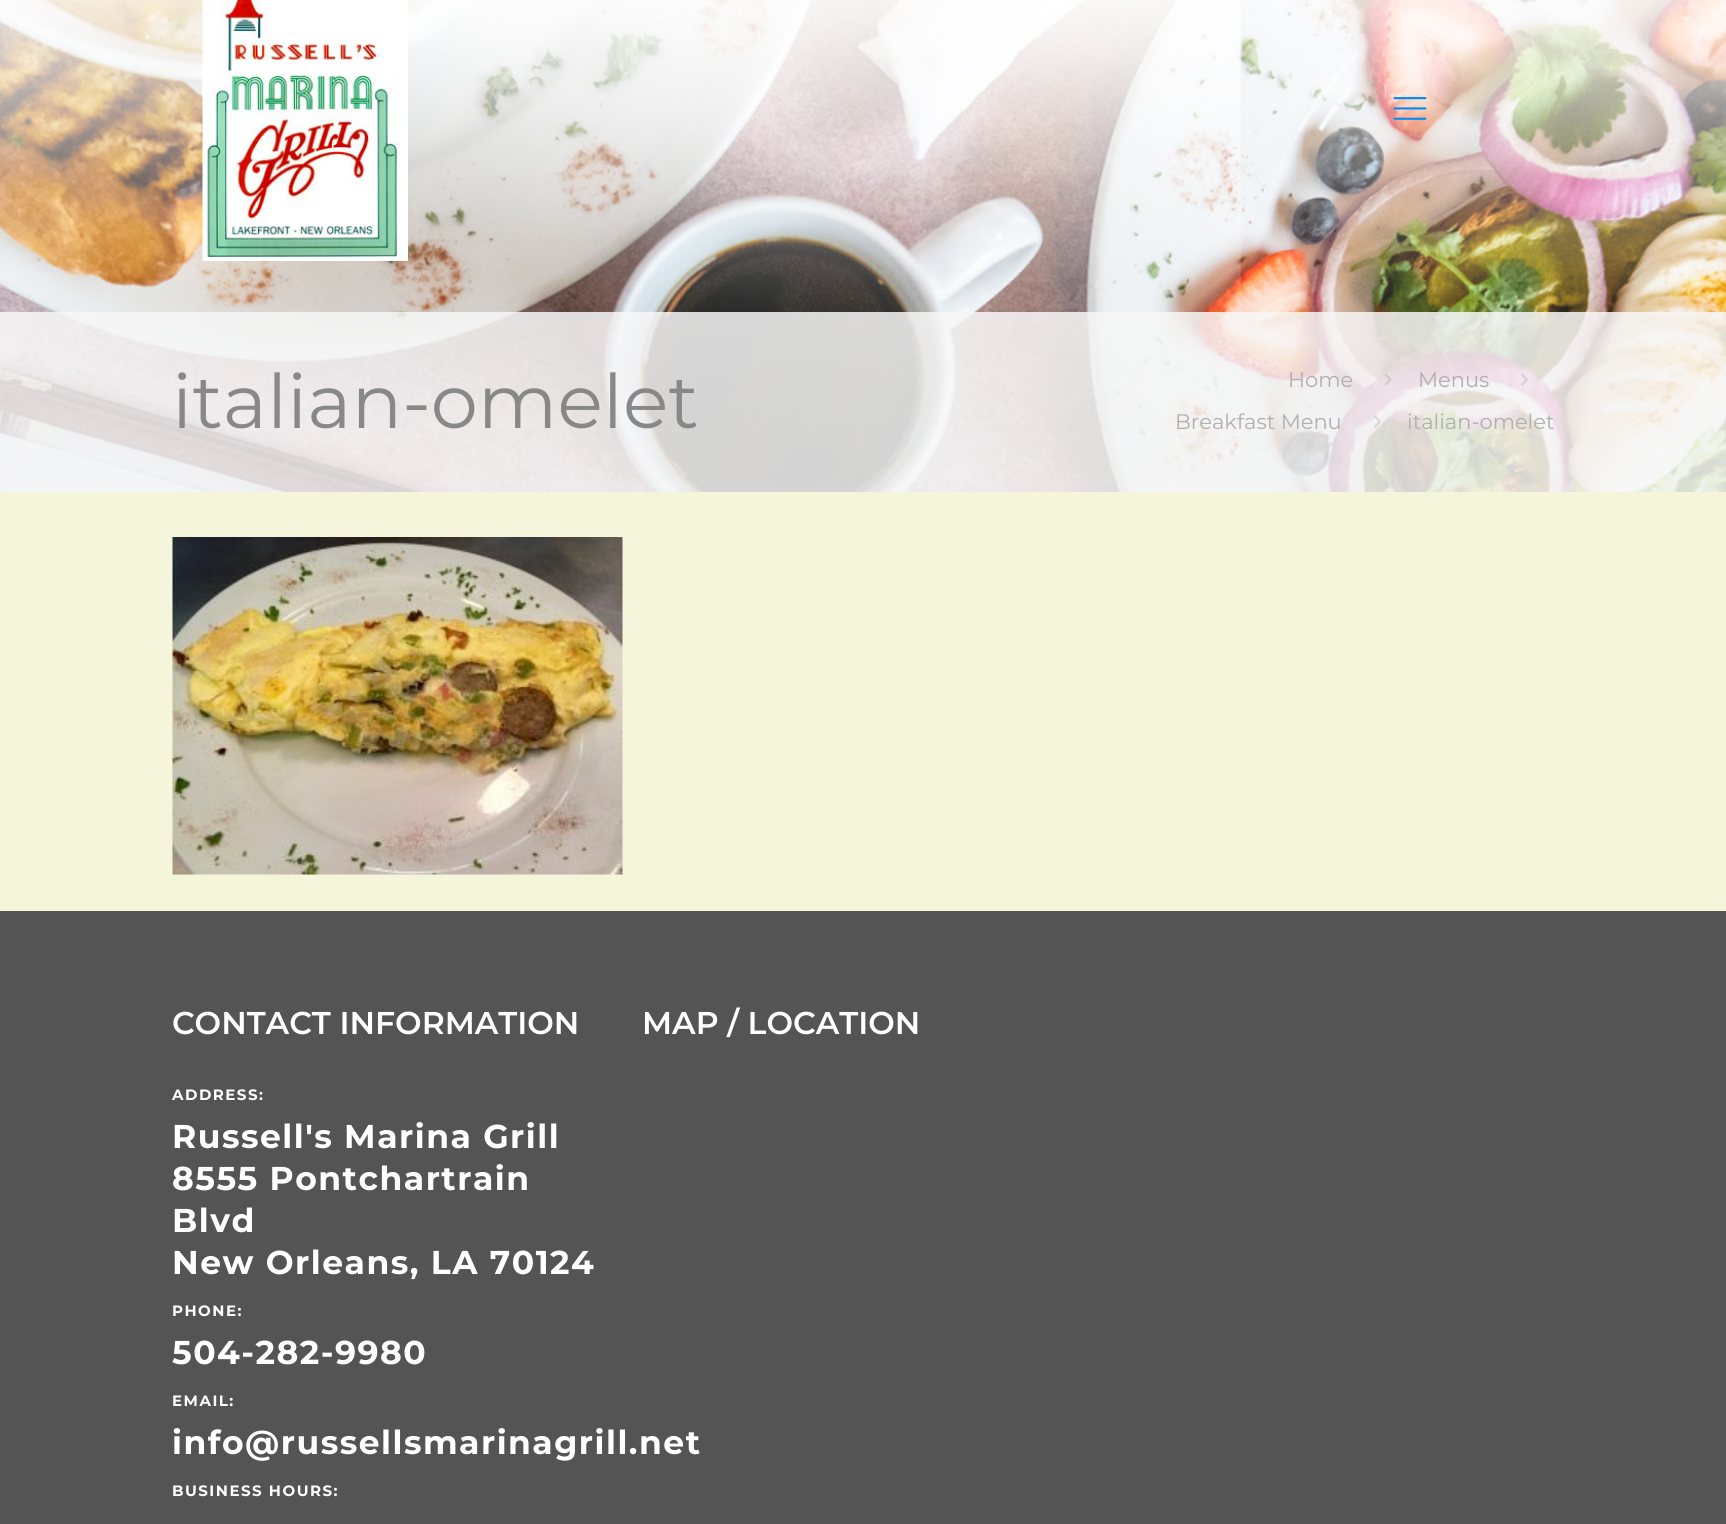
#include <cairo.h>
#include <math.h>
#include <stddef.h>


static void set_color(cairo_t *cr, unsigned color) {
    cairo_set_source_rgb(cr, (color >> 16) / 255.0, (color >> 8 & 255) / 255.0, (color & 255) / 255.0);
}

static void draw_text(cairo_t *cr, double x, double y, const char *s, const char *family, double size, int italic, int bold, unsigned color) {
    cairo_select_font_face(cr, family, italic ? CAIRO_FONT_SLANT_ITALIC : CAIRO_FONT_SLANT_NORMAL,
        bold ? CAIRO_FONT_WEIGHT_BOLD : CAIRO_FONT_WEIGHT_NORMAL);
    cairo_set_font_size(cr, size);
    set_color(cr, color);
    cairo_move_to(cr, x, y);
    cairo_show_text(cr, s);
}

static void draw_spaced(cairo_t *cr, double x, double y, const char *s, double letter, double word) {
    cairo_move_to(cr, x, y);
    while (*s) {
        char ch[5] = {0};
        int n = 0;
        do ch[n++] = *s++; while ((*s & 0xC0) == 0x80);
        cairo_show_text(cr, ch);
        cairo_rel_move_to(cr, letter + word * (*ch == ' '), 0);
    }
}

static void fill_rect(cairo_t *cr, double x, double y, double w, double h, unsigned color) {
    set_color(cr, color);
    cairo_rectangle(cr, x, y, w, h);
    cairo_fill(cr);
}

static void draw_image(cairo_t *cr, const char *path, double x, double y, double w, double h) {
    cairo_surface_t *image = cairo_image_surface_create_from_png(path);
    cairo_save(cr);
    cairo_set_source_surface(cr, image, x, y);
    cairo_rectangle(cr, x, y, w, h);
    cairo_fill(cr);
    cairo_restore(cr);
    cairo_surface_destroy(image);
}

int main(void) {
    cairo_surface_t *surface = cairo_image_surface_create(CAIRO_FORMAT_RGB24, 1726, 1524);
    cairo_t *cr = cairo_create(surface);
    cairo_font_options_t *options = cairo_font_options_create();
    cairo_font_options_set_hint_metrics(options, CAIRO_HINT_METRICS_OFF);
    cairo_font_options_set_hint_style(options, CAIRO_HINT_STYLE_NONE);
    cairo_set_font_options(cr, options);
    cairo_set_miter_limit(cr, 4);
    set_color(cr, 0xF5F5DC);
    cairo_paint(cr);
    draw_image(cr, "assets/img1.png", 0, 0, 1726, 492);
    draw_image(cr, "assets/img2.png", 202, 0, 206, 261);
    draw_image(cr, "assets/img3.png", 1393, 97, 34, 23);
    cairo_set_source_rgba(cr, 0.969, 0.969, 0.969, 0.85);
    cairo_rectangle(cr, 0, 312, 1726, 180);
    cairo_fill(cr);
    draw_text(cr, 172, 428, "italian-omelet", "Montserrat", 75, 0, 0, 0x888888);
    draw_text(cr, 1288, 387, "Home", "Montserrat", 21, 0, 0, 0xB1AEAF);
    draw_image(cr, "assets/img4.png", 1384, 373, 8, 13);
    draw_text(cr, 1418, 387, "Menus", "Montserrat", 21, 0, 0, 0xB1AEAF);
    draw_image(cr, "assets/img5.png", 1521, 373, 7, 13);
    draw_text(cr, 1175, 429, "Breakfast Menu", "Montserrat", 21, 0, 0, 0xB1AEAF);
    draw_image(cr, "assets/img6.png", 1374, 415, 7, 13);
    draw_text(cr, 1407, 429, "italian-omelet", "Montserrat", 21, 0, 0, 0xB1AEAF);
    draw_image(cr, "assets/img7.png", 172, 537, 451, 338);
    fill_rect(cr, 0, 911, 1726, 613, 0x545454);
    draw_text(cr, 172, 1034, "CONTACT INFORMATION", "Montserrat SemiBold", 31.5, 0, 0, 0xFFFFFF);
    cairo_select_font_face(cr, "Montserrat", CAIRO_FONT_SLANT_NORMAL, CAIRO_FONT_WEIGHT_BOLD);
    cairo_set_font_size(cr, 15);
    draw_spaced(cr, 172, 1100, "ADDRESS:", 1.5, 0);
    cairo_set_font_size(cr, 33);
    draw_spaced(cr, 172, 1148, "Russell's Marina Grill", 1.5, 0);
    draw_spaced(cr, 172, 1190, "8555 Pontchartrain", 1.5, 0);
    draw_spaced(cr, 172, 1232, "Blvd", 1.5, 0);
    draw_spaced(cr, 172, 1274, "New Orleans, LA 70124", 1.5, 0);
    cairo_set_font_size(cr, 15);
    draw_spaced(cr, 172, 1316, "PHONE:", 1.5, 0);
    cairo_set_font_size(cr, 33);
    draw_spaced(cr, 172, 1364, "504-282-9980", 1.5, 0);
    cairo_set_font_size(cr, 15);
    draw_spaced(cr, 172, 1406, "EMAIL:", 1.5, 0);
    cairo_set_font_size(cr, 33);
    draw_spaced(cr, 172, 1454, "info@russellsmarinagrill.net", 1.5, 0);
    cairo_set_font_size(cr, 15);
    draw_spaced(cr, 172, 1496, "BUSINESS HOURS:", 1.5, 0);
    draw_text(cr, 642, 1034, "MAP / LOCATION", "Montserrat SemiBold", 31.5, 0, 0, 0xFFFFFF);
    cairo_surface_write_to_png(surface, "output.png");
    cairo_font_options_destroy(options);
    cairo_destroy(cr);
    cairo_surface_destroy(surface);
    return 0;
}
